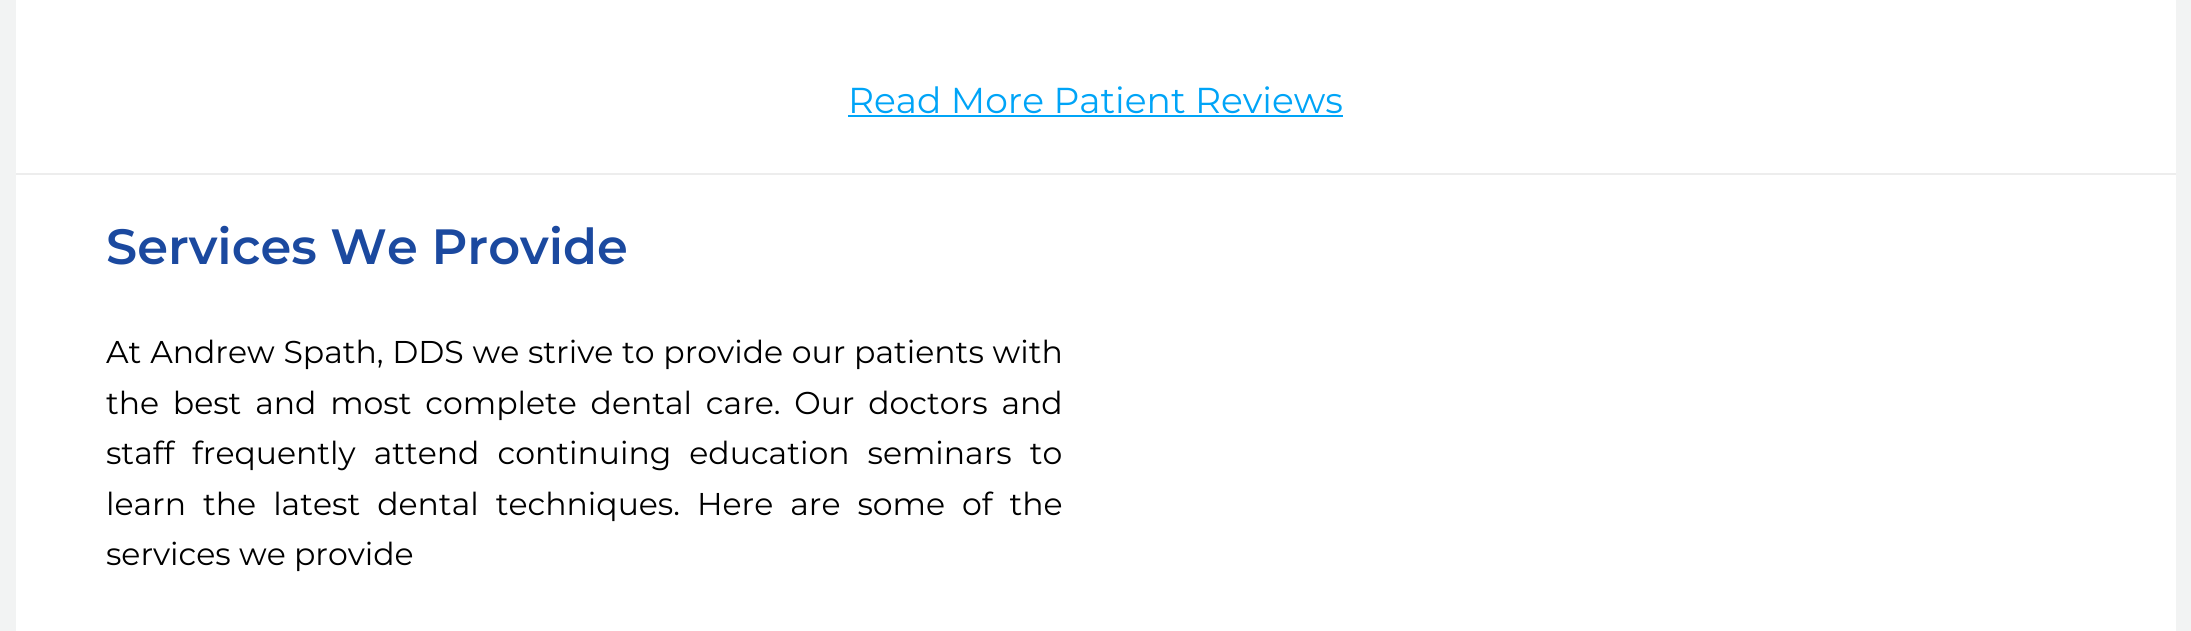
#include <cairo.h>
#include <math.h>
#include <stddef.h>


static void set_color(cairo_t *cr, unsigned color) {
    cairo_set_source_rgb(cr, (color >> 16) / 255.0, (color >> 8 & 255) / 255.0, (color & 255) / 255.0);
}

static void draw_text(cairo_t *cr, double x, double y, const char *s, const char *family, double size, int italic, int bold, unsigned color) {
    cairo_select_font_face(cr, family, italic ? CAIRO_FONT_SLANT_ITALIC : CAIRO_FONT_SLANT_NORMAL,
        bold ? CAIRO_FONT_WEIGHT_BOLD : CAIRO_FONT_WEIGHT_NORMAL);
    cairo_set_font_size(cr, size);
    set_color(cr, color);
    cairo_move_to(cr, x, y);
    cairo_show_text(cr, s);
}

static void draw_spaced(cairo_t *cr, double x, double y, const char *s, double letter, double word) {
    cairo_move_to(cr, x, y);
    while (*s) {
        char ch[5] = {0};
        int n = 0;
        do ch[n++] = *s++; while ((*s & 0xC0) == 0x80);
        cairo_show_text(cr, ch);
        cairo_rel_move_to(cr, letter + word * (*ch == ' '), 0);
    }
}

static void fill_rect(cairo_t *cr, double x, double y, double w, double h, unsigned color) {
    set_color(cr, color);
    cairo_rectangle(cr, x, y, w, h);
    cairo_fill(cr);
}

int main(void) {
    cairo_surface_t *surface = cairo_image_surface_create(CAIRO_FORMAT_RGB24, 2191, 631);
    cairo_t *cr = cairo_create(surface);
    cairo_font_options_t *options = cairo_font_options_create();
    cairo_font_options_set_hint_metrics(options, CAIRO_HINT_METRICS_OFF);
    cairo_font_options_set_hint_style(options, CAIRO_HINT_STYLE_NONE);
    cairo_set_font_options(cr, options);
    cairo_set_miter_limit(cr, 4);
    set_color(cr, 0xF2F3F3);
    cairo_paint(cr);
    fill_rect(cr, 16, 0, 2160, 631, 0xFFFFFF);
    fill_rect(cr, 16, 173, 2160, 2, 0xEDEDED);
    draw_text(cr, 848, 113, "Read More Patient Reviews", "Montserrat", 36, 0, 0, 0x00A4F7);
    fill_rect(cr, 848, 115, 495, 2, 0x00A4F7);
    draw_text(cr, 106, 264, "Services We Provide", "Montserrat SemiBold", 49.5, 0, 0, 0x1B499F);
    cairo_select_font_face(cr, "Montserrat", CAIRO_FONT_SLANT_NORMAL, CAIRO_FONT_WEIGHT_NORMAL);
    cairo_set_font_size(cr, 31.5);
    set_color(cr, 0x000000);
    draw_spaced(cr, 106, 363, "At Andrew Spath, DDS we strive to provide our patients with", 0, 0.5);
    draw_spaced(cr, 106, 414, "the best and most complete dental care. Our doctors and", 0, 5.5);
    draw_spaced(cr, 106, 464, "staff frequently attend continuing education seminars to", 0, 9.75);
    draw_spaced(cr, 106, 515, "learn the latest dental techniques. Here are some of the", 0, 8.75);
    draw_text(cr, 106, 565, "services we provide", "Montserrat", 31.5, 0, 0, 0x000000);
    cairo_surface_write_to_png(surface, "output.png");
    cairo_font_options_destroy(options);
    cairo_destroy(cr);
    cairo_surface_destroy(surface);
    return 0;
}
